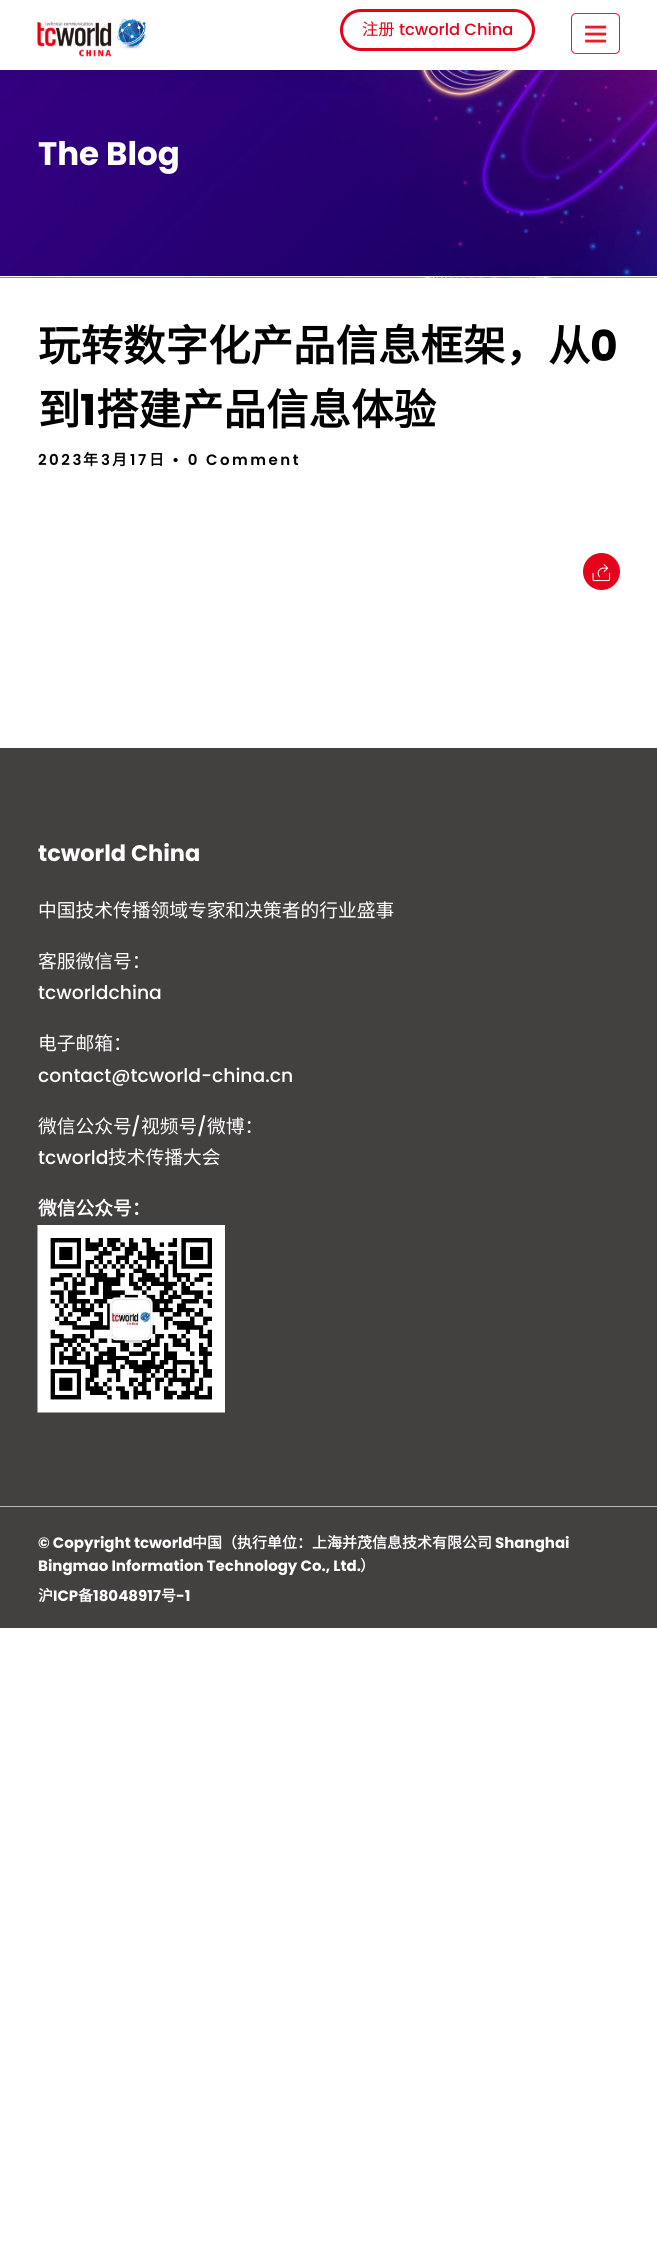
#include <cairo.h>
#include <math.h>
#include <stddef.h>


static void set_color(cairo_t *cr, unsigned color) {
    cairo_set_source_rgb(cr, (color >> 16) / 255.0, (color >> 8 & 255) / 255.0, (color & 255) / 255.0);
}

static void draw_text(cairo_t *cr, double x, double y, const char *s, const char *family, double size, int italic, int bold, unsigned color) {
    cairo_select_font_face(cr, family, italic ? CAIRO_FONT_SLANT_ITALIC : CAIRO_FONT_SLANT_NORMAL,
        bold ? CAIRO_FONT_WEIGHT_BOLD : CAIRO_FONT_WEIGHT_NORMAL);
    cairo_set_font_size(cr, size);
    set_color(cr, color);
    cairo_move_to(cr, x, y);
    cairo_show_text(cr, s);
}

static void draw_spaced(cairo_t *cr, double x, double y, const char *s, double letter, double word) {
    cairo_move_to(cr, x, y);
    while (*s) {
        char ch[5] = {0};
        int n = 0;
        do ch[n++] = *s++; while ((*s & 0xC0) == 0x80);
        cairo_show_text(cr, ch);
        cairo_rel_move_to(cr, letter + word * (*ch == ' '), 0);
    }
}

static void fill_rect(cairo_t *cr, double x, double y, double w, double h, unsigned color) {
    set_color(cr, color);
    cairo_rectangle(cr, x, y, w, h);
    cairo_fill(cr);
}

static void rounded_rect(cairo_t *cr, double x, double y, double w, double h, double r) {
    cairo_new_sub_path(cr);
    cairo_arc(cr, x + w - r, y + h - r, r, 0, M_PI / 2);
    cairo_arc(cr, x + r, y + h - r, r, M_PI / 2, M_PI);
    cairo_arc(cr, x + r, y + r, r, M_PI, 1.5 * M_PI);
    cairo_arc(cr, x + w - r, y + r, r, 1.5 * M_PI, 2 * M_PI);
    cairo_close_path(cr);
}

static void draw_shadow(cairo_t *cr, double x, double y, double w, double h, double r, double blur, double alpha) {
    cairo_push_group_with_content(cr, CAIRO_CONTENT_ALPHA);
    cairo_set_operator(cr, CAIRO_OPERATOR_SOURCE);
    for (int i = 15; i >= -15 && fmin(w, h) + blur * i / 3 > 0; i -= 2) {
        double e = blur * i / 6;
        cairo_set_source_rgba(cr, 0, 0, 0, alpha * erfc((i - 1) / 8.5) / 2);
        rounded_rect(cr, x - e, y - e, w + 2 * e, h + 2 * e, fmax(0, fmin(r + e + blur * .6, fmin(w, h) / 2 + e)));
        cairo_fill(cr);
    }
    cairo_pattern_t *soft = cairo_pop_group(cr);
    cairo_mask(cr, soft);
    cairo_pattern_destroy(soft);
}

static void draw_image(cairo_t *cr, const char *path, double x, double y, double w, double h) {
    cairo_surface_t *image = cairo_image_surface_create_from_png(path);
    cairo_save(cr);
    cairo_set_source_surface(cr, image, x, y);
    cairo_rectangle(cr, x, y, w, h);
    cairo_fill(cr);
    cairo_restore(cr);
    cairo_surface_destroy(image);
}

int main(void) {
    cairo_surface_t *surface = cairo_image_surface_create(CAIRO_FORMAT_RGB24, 657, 2244);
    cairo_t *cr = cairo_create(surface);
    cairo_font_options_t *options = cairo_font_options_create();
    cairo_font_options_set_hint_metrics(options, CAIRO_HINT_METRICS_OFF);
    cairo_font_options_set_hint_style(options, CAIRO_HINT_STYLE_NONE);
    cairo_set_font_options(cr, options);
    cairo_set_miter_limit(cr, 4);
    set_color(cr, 0xFFFFFF);
    cairo_paint(cr);
    fill_rect(cr, 0, 277, 657, 1, 0xF9F9F9);
    draw_image(cr, "assets/img3.png", 0, 70, 657, 208);
    set_color(cr, 0x000000);
    draw_shadow(cr, 0, 1, 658, 70, 0, 19, 0.1);
    fill_rect(cr, 0, 0, 657, 70, 0xFFFFFF);
    draw_image(cr, "assets/img1.png", 37, 18, 109, 39);
    rounded_rect(cr, 341.5, 10.5, 192, 39, 19.5);
    set_color(cr, 0xE4031B);
    cairo_set_line_width(cr, 3);
    cairo_stroke(cr);
    draw_text(cr, 362, 35, "注册", "Noto Sans CJK SC", 16.25, 0, 0, 0xE4031B);
    draw_text(cr, 399, 35, "tcworld China", "Poppins Medium", 16.25, 0, 0, 0xE4031B);
    rounded_rect(cr, 571.5, 13.5, 48, 40, 4.5);
    set_color(cr, 0xEE192A);
    cairo_set_line_width(cr, 1);
    cairo_stroke(cr);
    draw_image(cr, "assets/img2.png", 585, 25, 22, 18);
    fill_rect(cr, 0, 276, 657, 1, 0xFFFFFF);
    draw_text(cr, 38, 165, "The Blog", "Poppins", 32.5, 0, 1, 0xFFFFFF);
    draw_text(cr, 38, 361, "玩转数字化产品信息框架，从", "Noto Sans CJK SC", 42.5, 0, 1, 0x000000);
    draw_text(cr, 590, 361, "0", "Poppins", 42.5, 0, 1, 0x000000);
    draw_text(cr, 38, 425, "到", "Noto Sans CJK SC", 42.5, 0, 1, 0x000000);
    draw_text(cr, 80, 425, "1", "Poppins", 42.5, 0, 1, 0x000000);
    draw_text(cr, 96, 425, "搭建产品信息体验", "Noto Sans CJK SC", 42.5, 0, 1, 0x000000);
    cairo_select_font_face(cr, "Poppins SemiBold", CAIRO_FONT_SLANT_NORMAL, CAIRO_FONT_WEIGHT_NORMAL);
    cairo_set_font_size(cr, 15);
    draw_spaced(cr, 38, 465, "2023", 2.5, 0);
    cairo_select_font_face(cr, "Noto Sans CJK SC", CAIRO_FONT_SLANT_NORMAL, CAIRO_FONT_WEIGHT_BOLD);
    draw_spaced(cr, 83, 465, "年", 2.5, 0);
    cairo_select_font_face(cr, "Poppins SemiBold", CAIRO_FONT_SLANT_NORMAL, CAIRO_FONT_WEIGHT_NORMAL);
    draw_spaced(cr, 101, 465, "3", 2.5, 0);
    cairo_select_font_face(cr, "Noto Sans CJK SC", CAIRO_FONT_SLANT_NORMAL, CAIRO_FONT_WEIGHT_BOLD);
    draw_spaced(cr, 112, 465, "月", 2.5, 0);
    cairo_select_font_face(cr, "Poppins SemiBold", CAIRO_FONT_SLANT_NORMAL, CAIRO_FONT_WEIGHT_NORMAL);
    draw_spaced(cr, 130, 465, "17", 2.5, 0);
    cairo_select_font_face(cr, "Noto Sans CJK SC", CAIRO_FONT_SLANT_NORMAL, CAIRO_FONT_WEIGHT_BOLD);
    draw_spaced(cr, 149, 465, "日", 2.5, 0);
    cairo_select_font_face(cr, "Poppins SemiBold", CAIRO_FONT_SLANT_NORMAL, CAIRO_FONT_WEIGHT_NORMAL);
    draw_spaced(cr, 172, 465, "• 0 Comment", 2.5, 0);
    set_color(cr, 0xE4031B);
    cairo_new_path(cr);
    cairo_arc(cr, 601.5, 571.5, 17, 0, 2 * M_PI);
    cairo_fill_preserve(cr);
    cairo_set_line_width(cr, 3);
    cairo_stroke(cr);
    draw_image(cr, "assets/img4.png", 592, 564, 19, 18);
    fill_rect(cr, 0, 748, 657, 758, 0x434040);
    draw_text(cr, 38, 861, "tcworld China", "Poppins", 22.5, 0, 1, 0xFFFFFF);
    draw_text(cr, 38, 917, "中国技术传播领域专家和决策者的行业盛事", "Noto Sans CJK SC", 18.75, 0, 0, 0xFFFFFF);
    draw_text(cr, 38, 968, "客服微信号：", "Noto Sans CJK SC", 18.75, 0, 0, 0xFFFFFF);
    draw_text(cr, 38, 999, "tcworldchina", "Poppins Medium", 18.75, 0, 0, 0xFFFFFF);
    draw_text(cr, 38, 1050, "电子邮箱：", "Noto Sans CJK SC", 18.75, 0, 0, 0xFFFFFF);
    draw_text(cr, 38, 1082, "contact@tcworld-china.cn", "Poppins Medium", 18.75, 0, 0, 0xFFFFFF);
    draw_text(cr, 38, 1133, "微信公众号", "Noto Sans CJK SC", 18.75, 0, 0, 0xFFFFFF);
    draw_text(cr, 131, 1133, "/", "Poppins Medium", 18.75, 0, 0, 0xFFFFFF);
    draw_text(cr, 141, 1133, "视频号", "Noto Sans CJK SC", 18.75, 0, 0, 0xFFFFFF);
    draw_text(cr, 197, 1133, "/", "Poppins Medium", 18.75, 0, 0, 0xFFFFFF);
    draw_text(cr, 207, 1133, "微博：", "Noto Sans CJK SC", 18.75, 0, 0, 0xFFFFFF);
    draw_text(cr, 38, 1164, "tcworld", "Poppins Medium", 18.75, 0, 0, 0xFFFFFF);
    draw_text(cr, 108, 1164, "技术传播大会", "Noto Sans CJK SC", 18.75, 0, 0, 0xFFFFFF);
    draw_text(cr, 38, 1215, "微信公众号：", "Noto Sans CJK SC", 18.75, 0, 1, 0xFFFFFF);
    draw_image(cr, "assets/img5.png", 37, 1225, 188, 188);
    fill_rect(cr, 0, 1507, 657, 121, 0x434040);
    fill_rect(cr, 0, 1506, 657, 1, 0xBDB6B6);
    draw_text(cr, 38, 1548, "© Copyright tcworld", "Poppins", 15, 0, 1, 0xFFFFFF);
    draw_text(cr, 192, 1548, "中国（执行单位：上海并茂信息技术有限公司", "Noto Sans CJK SC", 15, 0, 1, 0xFFFFFF);
    draw_text(cr, 495, 1548, "Shanghai", "Poppins", 15, 0, 1, 0xFFFFFF);
    draw_text(cr, 38, 1571, "Bingmao Information Technology Co., Ltd.", "Poppins", 15, 0, 1, 0xFFFFFF);
    draw_text(cr, 360, 1571, "）", "Noto Sans CJK SC", 15, 0, 1, 0xFFFFFF);
    draw_text(cr, 38, 1601, "沪", "Noto Sans CJK SC", 15, 0, 1, 0xFFFFFF);
    draw_text(cr, 53, 1601, "ICP", "Poppins", 15, 0, 1, 0xFFFFFF);
    draw_text(cr, 78, 1601, "备", "Noto Sans CJK SC", 15, 0, 1, 0xFFFFFF);
    draw_text(cr, 93, 1601, "18048917", "Poppins", 15, 0, 1, 0xFFFFFF);
    draw_text(cr, 161, 1601, "号", "Noto Sans CJK SC", 15, 0, 1, 0xFFFFFF);
    draw_text(cr, 176, 1601, "-1", "Poppins", 15, 0, 1, 0xFFFFFF);
    cairo_surface_write_to_png(surface, "output.png");
    cairo_font_options_destroy(options);
    cairo_destroy(cr);
    cairo_surface_destroy(surface);
    return 0;
}
